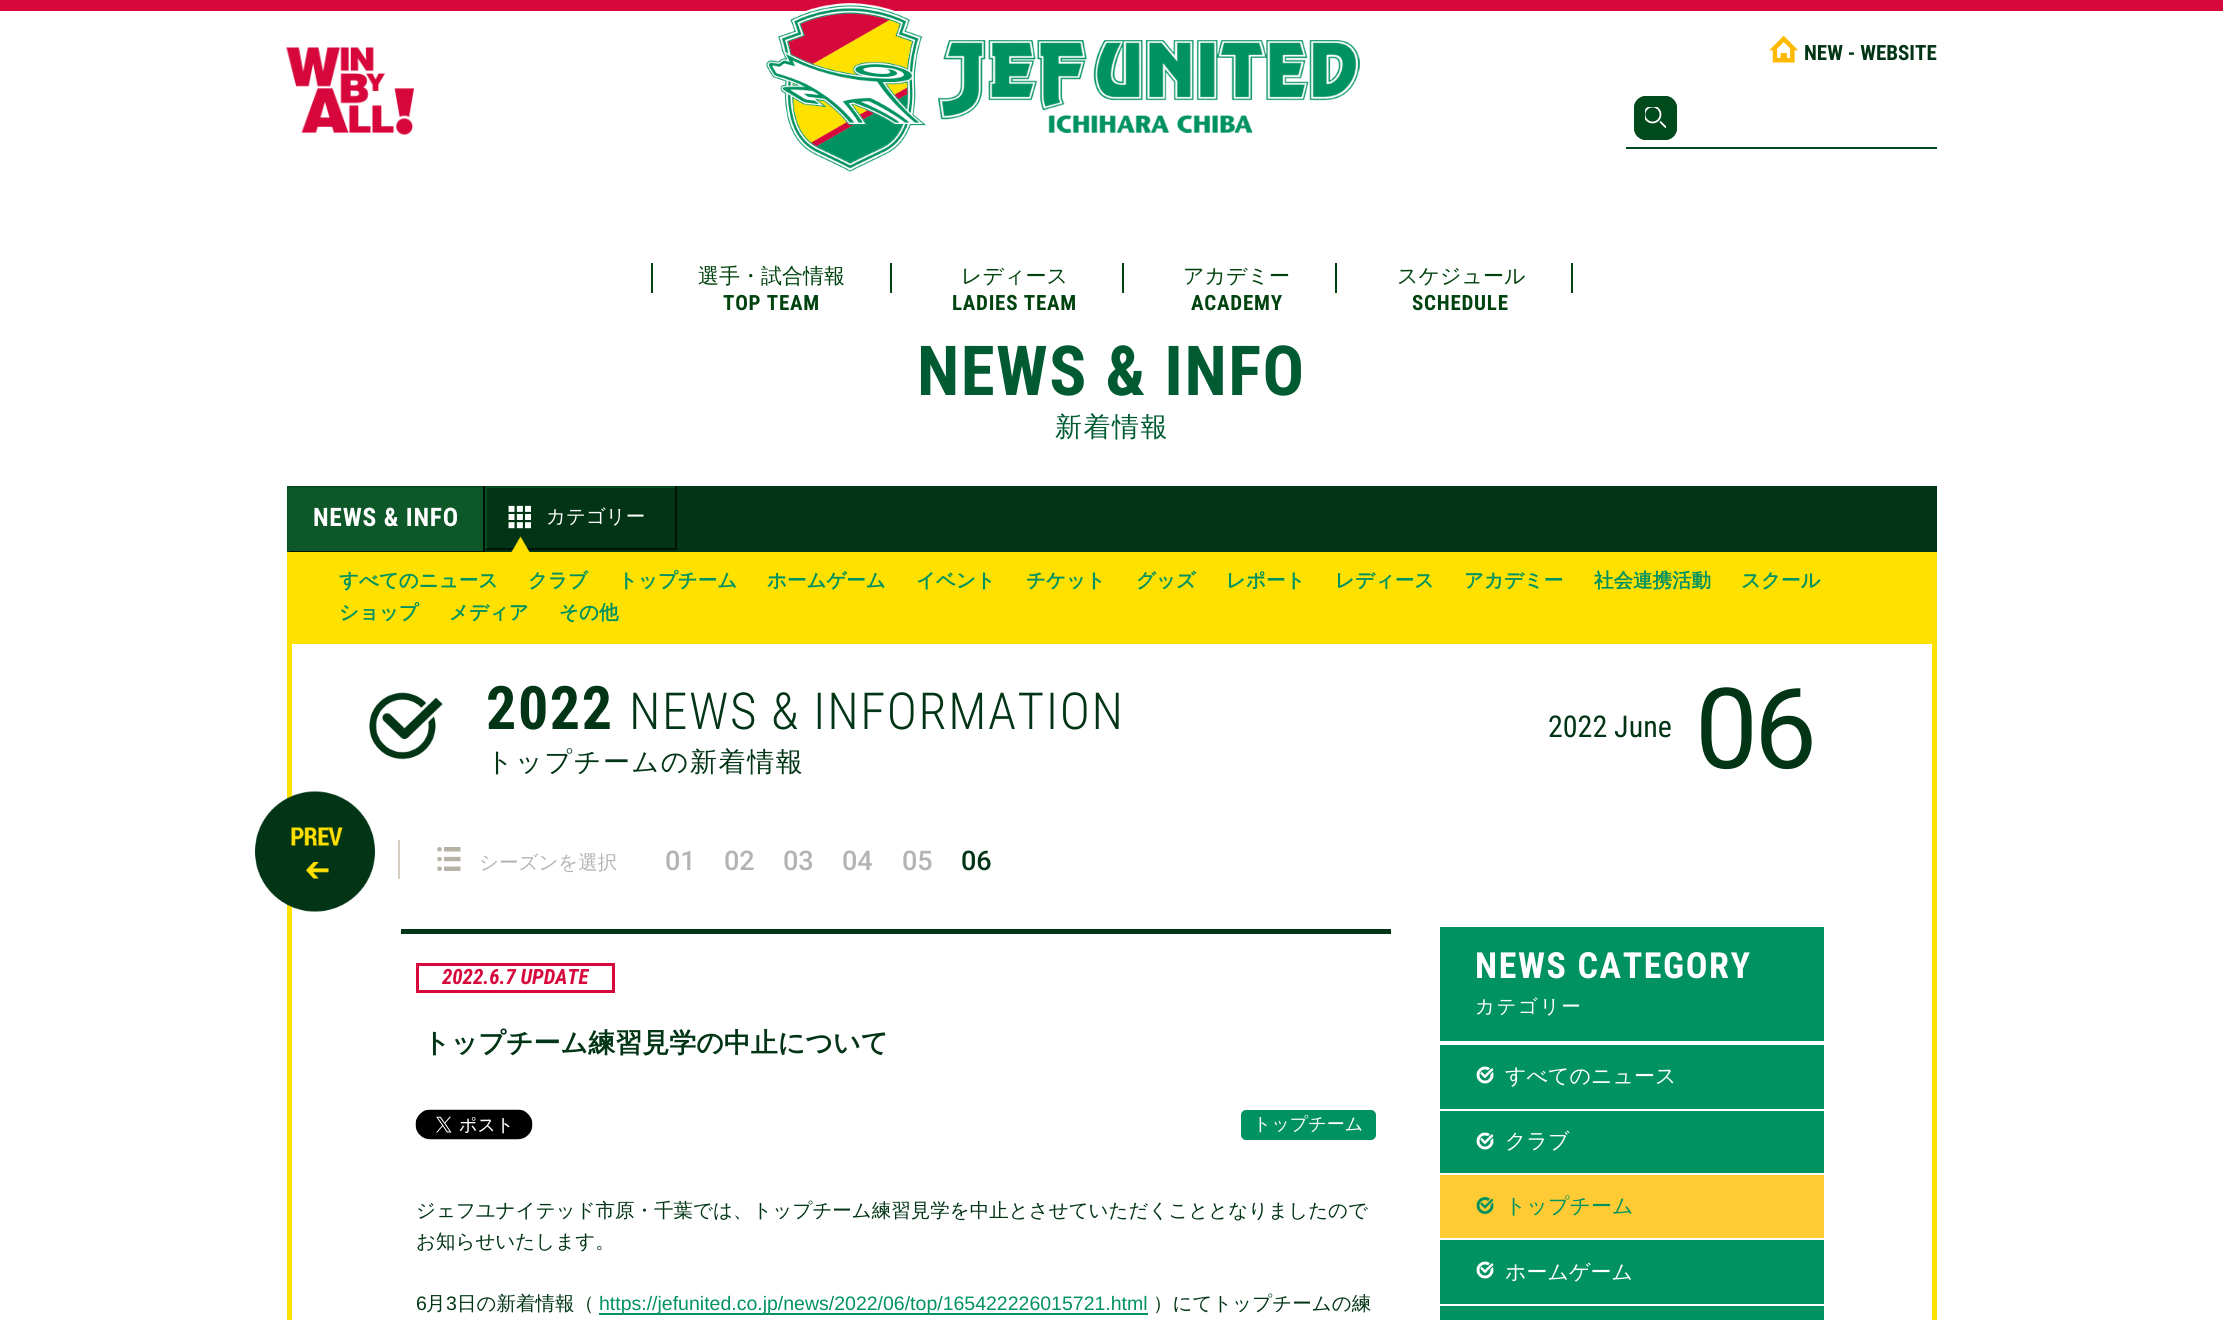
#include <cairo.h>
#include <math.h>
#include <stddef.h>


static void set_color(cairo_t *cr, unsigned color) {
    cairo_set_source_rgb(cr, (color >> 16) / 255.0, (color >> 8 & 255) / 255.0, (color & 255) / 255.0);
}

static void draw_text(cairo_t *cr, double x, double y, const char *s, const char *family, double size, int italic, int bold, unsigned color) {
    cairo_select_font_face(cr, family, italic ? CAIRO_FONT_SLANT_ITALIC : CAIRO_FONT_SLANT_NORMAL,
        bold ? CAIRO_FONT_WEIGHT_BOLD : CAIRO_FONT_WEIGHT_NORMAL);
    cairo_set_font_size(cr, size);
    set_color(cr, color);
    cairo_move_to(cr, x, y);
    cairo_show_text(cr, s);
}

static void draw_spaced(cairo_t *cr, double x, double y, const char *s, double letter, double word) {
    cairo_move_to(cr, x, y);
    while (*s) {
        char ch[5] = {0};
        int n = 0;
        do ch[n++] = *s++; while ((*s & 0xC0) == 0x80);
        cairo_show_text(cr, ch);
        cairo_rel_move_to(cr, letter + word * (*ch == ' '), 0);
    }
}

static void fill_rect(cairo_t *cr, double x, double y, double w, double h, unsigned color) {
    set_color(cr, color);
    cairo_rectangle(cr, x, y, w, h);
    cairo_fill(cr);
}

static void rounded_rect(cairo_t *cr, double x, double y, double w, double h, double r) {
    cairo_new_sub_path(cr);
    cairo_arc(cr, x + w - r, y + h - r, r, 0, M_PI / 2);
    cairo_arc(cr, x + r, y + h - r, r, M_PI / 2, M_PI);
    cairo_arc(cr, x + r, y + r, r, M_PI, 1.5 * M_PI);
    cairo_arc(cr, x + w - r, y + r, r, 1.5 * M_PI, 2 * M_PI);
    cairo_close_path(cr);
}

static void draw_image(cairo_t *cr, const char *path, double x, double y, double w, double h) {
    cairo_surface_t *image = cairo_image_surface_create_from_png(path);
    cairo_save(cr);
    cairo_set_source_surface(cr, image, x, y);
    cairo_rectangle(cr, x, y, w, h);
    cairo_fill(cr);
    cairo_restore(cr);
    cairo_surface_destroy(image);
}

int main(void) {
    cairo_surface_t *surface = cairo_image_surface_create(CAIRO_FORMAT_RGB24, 2223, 1320);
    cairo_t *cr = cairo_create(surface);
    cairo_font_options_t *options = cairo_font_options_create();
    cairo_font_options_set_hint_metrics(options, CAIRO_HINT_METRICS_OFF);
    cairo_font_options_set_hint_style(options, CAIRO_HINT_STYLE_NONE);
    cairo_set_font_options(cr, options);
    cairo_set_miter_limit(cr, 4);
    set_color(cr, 0xFFFFFF);
    cairo_paint(cr);
    fill_rect(cr, 0, 0, 2223, 11, 0xD7083B);
    draw_image(cr, "assets/img1.png", 286, 47, 128, 88);
    draw_image(cr, "assets/img2.png", 766, 3, 594, 169);
    draw_image(cr, "assets/img3.png", 1769, 35, 29, 28);
    draw_text(cr, 1804, 60, "NEW - WEBSITE", "Roboto Condensed", 21, 0, 1, 0x023515);
    set_color(cr, 0x004A1C);
    rounded_rect(cr, 1634, 96, 43, 44, 12);
    cairo_fill(cr);
    cairo_arc(cr, 1652.5, 114.5, 8, 0, 2 * M_PI);
    set_color(cr, 0xFFFFFF);
    cairo_set_line_width(cr, 1.8);
    cairo_stroke(cr);
    cairo_new_path(cr);
    cairo_move_to(cr, 1660, 121.5);
    cairo_line_to(cr, 1666, 127.5);
    cairo_stroke(cr);
    rounded_rect(cr, 1639.5, 101.5, 32, 33, 6.5);
    set_color(cr, 0x004A1C);
    cairo_set_line_width(cr, 11);
    cairo_stroke(cr);
    fill_rect(cr, 1626, 147, 311, 2, 0x004A1C);
    fill_rect(cr, 890, 263, 2, 30, 0x00430F);
    fill_rect(cr, 651, 263, 2, 30, 0x00430F);
    draw_text(cr, 698, 283, "選手・試合情報", "WenQuanYi Zen Hei Medium", 21, 0, 0, 0x00430F);
    cairo_select_font_face(cr, "Roboto Condensed", CAIRO_FONT_SLANT_NORMAL, CAIRO_FONT_WEIGHT_BOLD);
    draw_spaced(cr, 723, 310, "TOP TEAM", 0.75, 0);
    fill_rect(cr, 1122, 263, 2, 30, 0x00430F);
    draw_text(cr, 961, 283, "レディース", "WenQuanYi Zen Hei Medium", 21, 0, 0, 0x00430F);
    cairo_select_font_face(cr, "Roboto Condensed", CAIRO_FONT_SLANT_NORMAL, CAIRO_FONT_WEIGHT_BOLD);
    draw_spaced(cr, 952, 310, "LADIES TEAM", 0.75, 0);
    fill_rect(cr, 1335, 263, 2, 30, 0x00430F);
    draw_text(cr, 1183, 283, "アカデミー", "WenQuanYi Zen Hei Medium", 21, 0, 0, 0x00430F);
    cairo_select_font_face(cr, "Roboto Condensed", CAIRO_FONT_SLANT_NORMAL, CAIRO_FONT_WEIGHT_BOLD);
    draw_spaced(cr, 1191, 310, "ACADEMY", 0.75, 0);
    fill_rect(cr, 1571, 263, 2, 30, 0x00430F);
    draw_text(cr, 1397, 283, "スケジュール", "WenQuanYi Zen Hei Medium", 21, 0, 0, 0x00430F);
    cairo_select_font_face(cr, "Roboto Condensed", CAIRO_FONT_SLANT_NORMAL, CAIRO_FONT_WEIGHT_BOLD);
    draw_spaced(cr, 1412, 310, "SCHEDULE", 0.75, 0);
    cairo_set_font_size(cr, 69);
    set_color(cr, 0x005B32);
    draw_spaced(cr, 917, 395, "NEWS & INFO", 1.5, 0);
    cairo_select_font_face(cr, "WenQuanYi Zen Hei Medium", CAIRO_FONT_SLANT_NORMAL, CAIRO_FONT_WEIGHT_NORMAL);
    cairo_set_font_size(cr, 27);
    draw_spaced(cr, 1055, 436, "新着情報", 1.5, 0);
    fill_rect(cr, 485, 486, 1452, 66, 0x023515);
    fill_rect(cr, 287, 486, 390, 2, 0x074D21);
    fill_rect(cr, 483, 486, 2, 66, 0x011609);
    fill_rect(cr, 287, 551, 198, 1, 0x011609);
    fill_rect(cr, 287, 486, 2, 66, 0x074D21);
    fill_rect(cr, 288, 488, 195, 63, 0x0D5728);
    cairo_select_font_face(cr, "Roboto Condensed", CAIRO_FONT_SLANT_NORMAL, CAIRO_FONT_WEIGHT_BOLD);
    cairo_set_font_size(cr, 25.5);
    set_color(cr, 0xFFFFFF);
    draw_spaced(cr, 313, 526, "NEWS & INFO", 0.75, 0);
    fill_rect(cr, 675, 486, 2, 63, 0x011609);
    fill_rect(cr, 485, 548, 192, 2, 0x011609);
    fill_rect(cr, 485, 486, 2, 63, 0x074D21);
    draw_image(cr, "assets/img4.png", 508, 505, 23, 24);
    draw_text(cr, 546, 523, "カテゴリー", "WenQuanYi Zen Hei Medium", 19.5, 0, 0, 0xFFFFFF);
    fill_rect(cr, 287, 552, 1650, 92, 0xFFE100);
    draw_image(cr, "assets/img5.png", 511, 536, 19, 16);
    draw_text(cr, 339, 587, "すべてのニュース", "WenQuanYi Zen Hei", 19.5, 0, 1, 0x009260);
    draw_text(cr, 528, 587, "クラブ", "WenQuanYi Zen Hei", 19.5, 0, 1, 0x009260);
    draw_text(cr, 618, 587, "トップチーム", "WenQuanYi Zen Hei", 19.5, 0, 1, 0x009260);
    draw_text(cr, 767, 587, "ホームゲーム", "WenQuanYi Zen Hei", 19.5, 0, 1, 0x009260);
    draw_text(cr, 916, 587, "イベント", "WenQuanYi Zen Hei", 19.5, 0, 1, 0x009260);
    draw_text(cr, 1026, 587, "チケット", "WenQuanYi Zen Hei", 19.5, 0, 1, 0x009260);
    draw_text(cr, 1136, 587, "グッズ", "WenQuanYi Zen Hei", 19.5, 0, 1, 0x009260);
    draw_text(cr, 1226, 587, "レポート", "WenQuanYi Zen Hei", 19.5, 0, 1, 0x009260);
    draw_text(cr, 1335, 587, "レディース", "WenQuanYi Zen Hei", 19.5, 0, 1, 0x009260);
    draw_text(cr, 1464, 587, "アカデミー", "WenQuanYi Zen Hei", 19.5, 0, 1, 0x009260);
    draw_text(cr, 1594, 587, "社会連携活動", "WenQuanYi Zen Hei", 19.5, 0, 1, 0x009260);
    draw_text(cr, 1741, 587, "スクール", "WenQuanYi Zen Hei", 19.5, 0, 1, 0x009260);
    draw_text(cr, 339, 619, "ショップ", "WenQuanYi Zen Hei", 19.5, 0, 1, 0x009260);
    draw_text(cr, 449, 619, "メディア", "WenQuanYi Zen Hei", 19.5, 0, 1, 0x009260);
    draw_text(cr, 559, 619, "その他", "WenQuanYi Zen Hei", 19.5, 0, 1, 0x009260);
    fill_rect(cr, 1932, 644, 5, 676, 0xFFE100);
    fill_rect(cr, 287, 644, 5, 676, 0xFFE100);
    draw_image(cr, "assets/img6.png", 369, 692, 74, 68);
    cairo_select_font_face(cr, "Roboto Condensed", CAIRO_FONT_SLANT_NORMAL, CAIRO_FONT_WEIGHT_BOLD);
    cairo_set_font_size(cr, 60);
    set_color(cr, 0x023515);
    draw_spaced(cr, 486, 729, "2022", 1.6, 0);
    cairo_select_font_face(cr, "Roboto Condensed Light", CAIRO_FONT_SLANT_NORMAL, CAIRO_FONT_WEIGHT_NORMAL);
    cairo_set_font_size(cr, 51);
    draw_spaced(cr, 629, 729, "NEWS & INFORMATION", 1.6, 0);
    cairo_select_font_face(cr, "WenQuanYi Zen Hei Medium", CAIRO_FONT_SLANT_NORMAL, CAIRO_FONT_WEIGHT_NORMAL);
    cairo_set_font_size(cr, 27);
    draw_spaced(cr, 486, 771, "トップチームの新着情報", 1.6, 0);
    draw_text(cr, 1548, 737, "2022 June", "Roboto Condensed", 30, 0, 0, 0x023515);
    cairo_select_font_face(cr, "Roboto", CAIRO_FONT_SLANT_NORMAL, CAIRO_FONT_WEIGHT_NORMAL);
    cairo_set_font_size(cr, 112);
    draw_spaced(cr, 1695, 768, "06", -4, 0);
    draw_image(cr, "assets/img7.png", 255, 791, 120, 121);
    fill_rect(cr, 398, 840, 2, 39, 0xD3CEC1);
    draw_image(cr, "assets/img8.png", 437, 847, 24, 24);
    draw_text(cr, 479, 869, "シーズンを選択", "WenQuanYi Zen Hei Medium", 19.5, 0, 0, 0xB3B3B3);
    draw_text(cr, 665, 870, "01", "Roboto Medium", 27, 0, 0, 0xB3B3B3);
    draw_text(cr, 724, 870, "02", "Roboto Medium", 27, 0, 0, 0xB3B3B3);
    draw_text(cr, 783, 870, "03", "Roboto Medium", 27, 0, 0, 0xB3B3B3);
    draw_text(cr, 842, 870, "04", "Roboto Medium", 27, 0, 0, 0xB3B3B3);
    draw_text(cr, 902, 870, "05", "Roboto Medium", 27, 0, 0, 0xB3B3B3);
    draw_text(cr, 961, 870, "06", "Roboto Medium", 27, 0, 0, 0x023515);
    fill_rect(cr, 401, 929, 990, 5, 0x023515);
    cairo_rectangle(cr, 417.5, 964.5, 196, 27);
    set_color(cr, 0xD7083B);
    cairo_set_line_width(cr, 3);
    cairo_stroke(cr);
    draw_text(cr, 442, 984, "2022.6.7 UPDATE", "Roboto Condensed", 21, 1, 1, 0xD7083B);
    draw_text(cr, 423, 1052, "トップチーム練習見学の中止について", "WenQuanYi Zen Hei", 27, 0, 1, 0x023515);
    draw_image(cr, "assets/img9.png", 415, 1109, 118, 31);
    set_color(cr, 0x009260);
    rounded_rect(cr, 1241, 1110, 135, 30, 5);
    cairo_fill(cr);
    draw_text(cr, 1253, 1130, "トップチーム", "WenQuanYi Zen Hei Medium", 18, 0, 0, 0xFFFFFF);
    draw_text(cr, 416, 1217, "ジェフユナイテッド市原・千葉では、トップチーム練習見学を中止とさせていただくこととなりましたので", "WenQuanYi Zen Hei Medium", 19.5, 0, 0, 0x023515);
    draw_text(cr, 416, 1248, "お知らせいたします。", "WenQuanYi Zen Hei Medium", 19.5, 0, 0, 0x023515);
    draw_text(cr, 416, 1310, "6", "Liberation Sans", 19.5, 0, 0, 0x023515);
    draw_text(cr, 426, 1310, "月", "WenQuanYi Zen Hei Medium", 19.5, 0, 0, 0x023515);
    draw_text(cr, 446, 1310, "3", "Liberation Sans", 19.5, 0, 0, 0x023515);
    draw_text(cr, 457, 1310, "日の新着情報（", "WenQuanYi Zen Hei Medium", 19.5, 0, 0, 0x023515);
    fill_rect(cr, 599, 1313, 549, 2, 0x009260);
    draw_text(cr, 599, 1310, "https://jefunited.co.jp/news/2022/06/top/165422226015721.html", "Liberation Sans", 19.5, 0, 0, 0x009260);
    draw_text(cr, 1153, 1310, "）にてトップチームの練", "WenQuanYi Zen Hei Medium", 19.5, 0, 0, 0x023515);
    fill_rect(cr, 1440, 927, 384, 393, 0x009260);
    fill_rect(cr, 1440, 1041, 384, 4, 0xFFFFFF);
    cairo_select_font_face(cr, "Roboto Condensed", CAIRO_FONT_SLANT_NORMAL, CAIRO_FONT_WEIGHT_BOLD);
    cairo_set_font_size(cr, 36);
    draw_spaced(cr, 1475, 978, "NEWS CATEGORY", 1.6, 0);
    cairo_select_font_face(cr, "WenQuanYi Zen Hei Medium", CAIRO_FONT_SLANT_NORMAL, CAIRO_FONT_WEIGHT_NORMAL);
    cairo_set_font_size(cr, 19.5);
    draw_spaced(cr, 1475, 1013, "カテゴリー", 1.6, 0);
    draw_image(cr, "assets/img10.png", 1476, 1066, 18, 18);
    draw_text(cr, 1505, 1083, "すべてのニュース", "WenQuanYi Zen Hei Medium", 21, 0, 0, 0xFFFFFF);
    fill_rect(cr, 1440, 1109, 384, 2, 0xFFFFFF);
    draw_image(cr, "assets/img10.png", 1476, 1132, 18, 18);
    draw_text(cr, 1505, 1148, "クラブ", "WenQuanYi Zen Hei Medium", 21, 0, 0, 0xFFFFFF);
    fill_rect(cr, 1440, 1173, 384, 2, 0xFFFFFF);
    fill_rect(cr, 1440, 1175, 384, 63, 0xFECB34);
    draw_image(cr, "assets/img11.png", 1476, 1197, 18, 17);
    draw_text(cr, 1505, 1213, "トップチーム", "WenQuanYi Zen Hei Medium", 21, 0, 0, 0x009260);
    fill_rect(cr, 1440, 1238, 384, 2, 0xFFFFFF);
    draw_image(cr, "assets/img10.png", 1476, 1261, 18, 18);
    draw_text(cr, 1505, 1279, "ホームゲーム", "WenQuanYi Zen Hei Medium", 21, 0, 0, 0xFFFFFF);
    fill_rect(cr, 1440, 1304, 384, 2, 0xFFFFFF);
    cairo_surface_write_to_png(surface, "output.png");
    cairo_font_options_destroy(options);
    cairo_destroy(cr);
    cairo_surface_destroy(surface);
    return 0;
}
